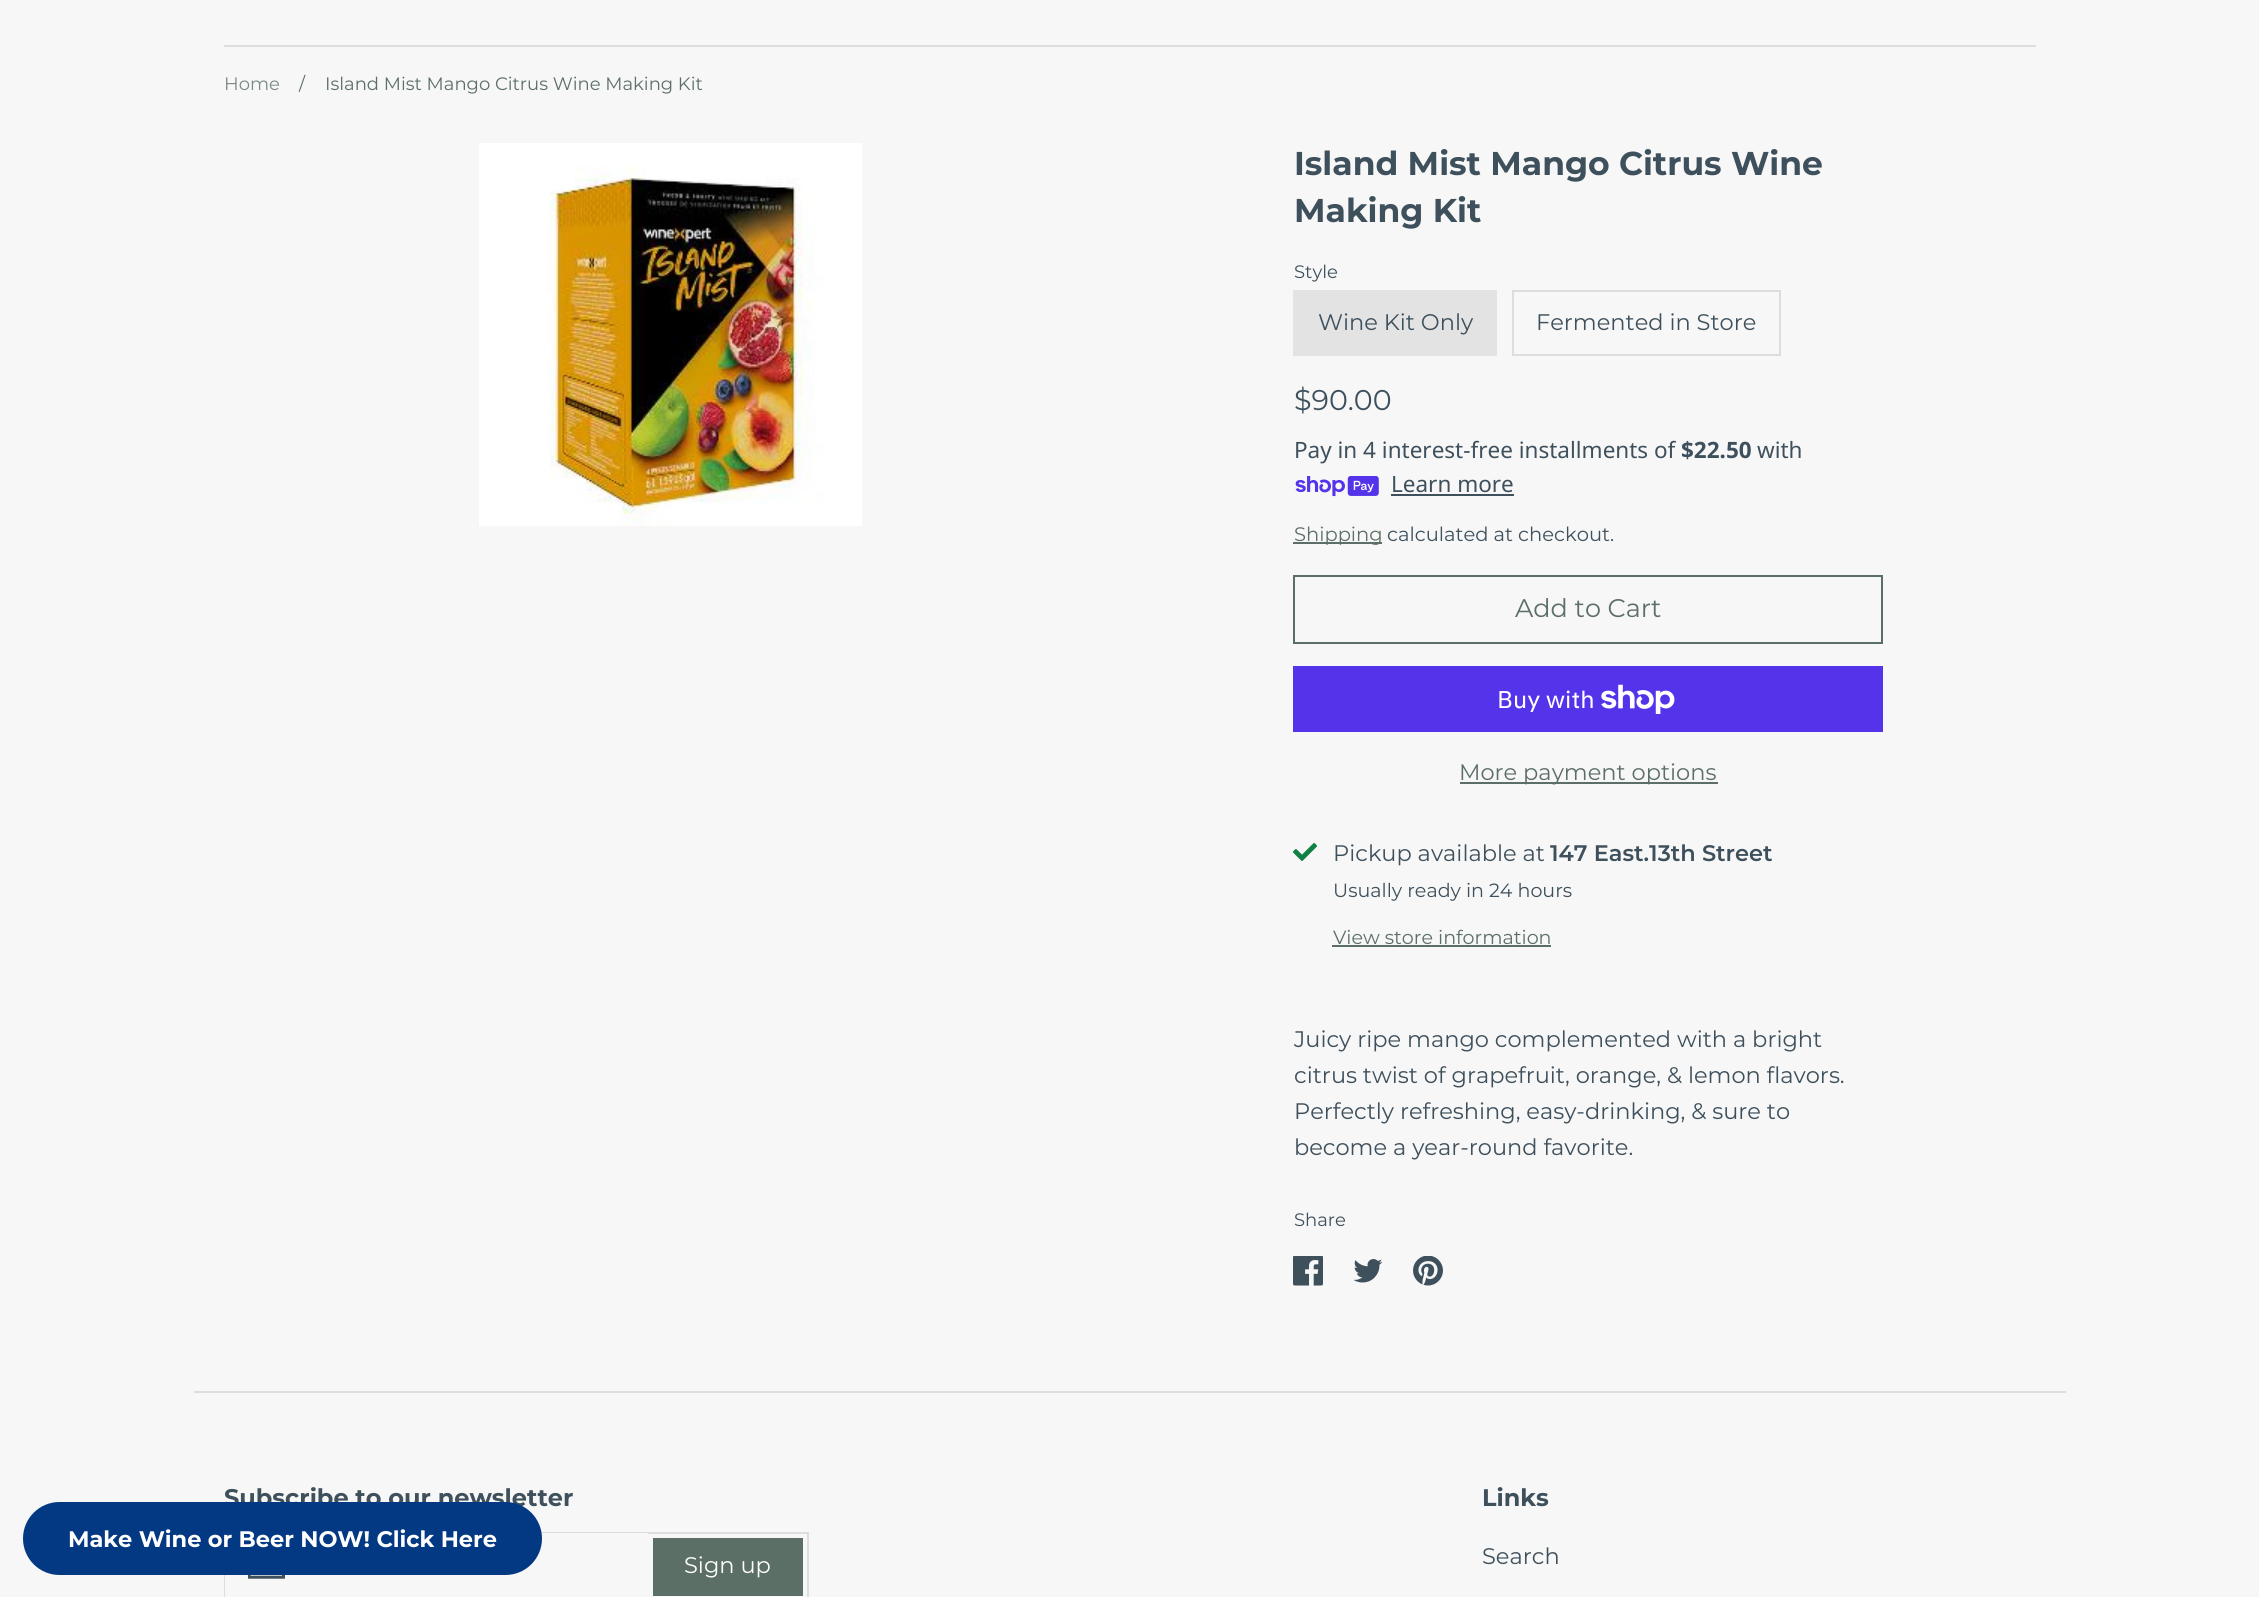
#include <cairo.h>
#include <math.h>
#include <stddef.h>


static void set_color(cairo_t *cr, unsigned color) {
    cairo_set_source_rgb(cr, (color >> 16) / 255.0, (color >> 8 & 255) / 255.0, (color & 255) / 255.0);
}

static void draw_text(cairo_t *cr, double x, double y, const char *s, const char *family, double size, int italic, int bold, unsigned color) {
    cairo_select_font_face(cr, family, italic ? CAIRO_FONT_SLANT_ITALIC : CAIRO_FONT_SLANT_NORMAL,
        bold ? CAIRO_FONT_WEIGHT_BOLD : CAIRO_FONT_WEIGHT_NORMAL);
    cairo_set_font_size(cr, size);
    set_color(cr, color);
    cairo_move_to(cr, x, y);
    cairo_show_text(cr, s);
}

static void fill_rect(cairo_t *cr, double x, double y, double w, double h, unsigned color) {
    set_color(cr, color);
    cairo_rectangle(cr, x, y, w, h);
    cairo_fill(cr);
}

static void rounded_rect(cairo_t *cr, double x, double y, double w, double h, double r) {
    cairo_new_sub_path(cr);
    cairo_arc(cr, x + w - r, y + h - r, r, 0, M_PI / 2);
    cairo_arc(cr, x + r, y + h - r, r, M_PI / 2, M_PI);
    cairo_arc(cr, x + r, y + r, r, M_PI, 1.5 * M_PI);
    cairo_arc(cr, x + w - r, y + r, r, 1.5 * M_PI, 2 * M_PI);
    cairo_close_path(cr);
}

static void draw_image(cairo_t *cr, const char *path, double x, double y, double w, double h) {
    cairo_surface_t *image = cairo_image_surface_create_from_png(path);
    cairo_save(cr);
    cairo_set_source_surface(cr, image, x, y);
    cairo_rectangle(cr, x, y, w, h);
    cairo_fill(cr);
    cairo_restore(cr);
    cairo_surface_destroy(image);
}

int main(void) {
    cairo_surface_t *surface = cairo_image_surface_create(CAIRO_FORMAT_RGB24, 2259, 1597);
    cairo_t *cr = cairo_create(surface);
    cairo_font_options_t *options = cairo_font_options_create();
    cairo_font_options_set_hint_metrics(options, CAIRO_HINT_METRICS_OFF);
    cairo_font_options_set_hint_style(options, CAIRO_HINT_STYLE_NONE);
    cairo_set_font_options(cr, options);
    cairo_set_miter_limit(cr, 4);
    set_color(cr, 0xF7F7F7);
    cairo_paint(cr);
    fill_rect(cr, 224, 45, 1812, 2, 0xDBDEE0);
    draw_text(cr, 224, 90, "Home", "Montserrat", 18, 0, 0, 0x7B8A83);
    draw_text(cr, 299, 90, "/", "Montserrat", 18, 0, 0, 0x5C6F66);
    draw_text(cr, 325, 90, "Island Mist Mango Citrus Wine Making Kit", "Montserrat", 18, 0, 0, 0x5C6F66);
    draw_image(cr, "assets/img1.png", 479, 143, 383, 383);
    draw_text(cr, 1294, 175, "Island Mist Mango Citrus Wine", "Montserrat", 33, 0, 1, 0x3E505C);
    draw_text(cr, 1294, 222, "Making Kit", "Montserrat", 33, 0, 1, 0x3E505C);
    draw_text(cr, 1294, 278, "Style", "Montserrat", 18, 0, 0, 0x3E505C);
    fill_rect(cr, 1293, 290, 204, 66, 0xE3E3E3);
    draw_text(cr, 1318, 330, "Wine Kit Only", "Montserrat", 22.5, 0, 0, 0x3E505C);
    cairo_rectangle(cr, 1513, 291, 267, 64);
    set_color(cr, 0xDBDEE0);
    cairo_stroke(cr);
    draw_text(cr, 1536, 330, "Fermented in Store", "Montserrat", 22.5, 0, 0, 0x3E505C);
    draw_text(cr, 1294, 410, "$90.00", "Montserrat", 28.5, 0, 0, 0x3E505C);
    draw_text(cr, 1294, 458, "Pay in 4 interest-free installments of", "Noto Sans", 22.5, 0, 0, 0x3E505C);
    draw_text(cr, 1681, 458, "$22.50", "Noto Sans", 22.5, 0, 1, 0x3E505C);
    draw_text(cr, 1757, 458, "with", "Noto Sans", 22.5, 0, 0, 0x3E505C);
    draw_image(cr, "assets/img2.png", 1295, 476, 84, 21);
    draw_text(cr, 1391, 492, "Learn more", "Noto Sans", 22.5, 0, 0, 0x3E505C);
    fill_rect(cr, 1391, 494, 123, 2, 0x3E505C);
    fill_rect(cr, 1293, 542, 89, 2, 0x5C6F66);
    draw_text(cr, 1294, 541, "Shipping", "Montserrat", 19.5, 0, 0, 0x5C6F66);
    draw_text(cr, 1387, 541, "calculated at checkout.", "Montserrat", 19.5, 0, 0, 0x3E505C);
    cairo_rectangle(cr, 1294, 576, 588, 67);
    set_color(cr, 0x5C6F66);
    cairo_stroke(cr);
    draw_text(cr, 1515, 617, "Add to Cart", "Montserrat", 25.5, 0, 0, 0x5C6F66);
    fill_rect(cr, 1293, 666, 590, 66, 0x5433EB);
    draw_text(cr, 1497, 708, "Buy with", "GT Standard", 24, 0, 0, 0xFFFFFF);
    draw_image(cr, "assets/img3.png", 1601, 684, 74, 30);
    fill_rect(cr, 1460, 782, 258, 2, 0x5C6F66);
    draw_text(cr, 1459, 780, "More payment options", "Montserrat", 22.5, 0, 0, 0x5C6F66);
    draw_image(cr, "assets/img4.png", 1293, 843, 24, 18);
    draw_text(cr, 1333, 861, "Pickup available at", "Montserrat", 22.5, 0, 0, 0x3E505C);
    draw_text(cr, 1550, 861, "147 East.13th Street", "Montserrat SemiBold", 22.5, 0, 0, 0x3E505C);
    draw_text(cr, 1333, 897, "Usually ready in 24 hours", "Montserrat", 19.1, 0, 0, 0x3E505C);
    draw_text(cr, 1333, 944, "View store information", "Montserrat", 19.1, 0, 0, 0x5C6F66);
    fill_rect(cr, 1332, 945, 219, 2, 0x5C6F66);
    draw_text(cr, 1294, 1047, "Juicy ripe mango complemented with a bright", "Montserrat", 22.5, 0, 0, 0x3E505C);
    draw_text(cr, 1294, 1083, "citrus twist of grapefruit, orange, & lemon flavors.", "Montserrat", 22.5, 0, 0, 0x3E505C);
    draw_text(cr, 1294, 1119, "Perfectly refreshing, easy-drinking, & sure to", "Montserrat", 22.5, 0, 0, 0x3E505C);
    draw_text(cr, 1294, 1155, "become a year-round favorite.", "Montserrat", 22.5, 0, 0, 0x3E505C);
    draw_text(cr, 1294, 1226, "Share", "Montserrat", 18, 0, 0, 0x3E505C);
    draw_image(cr, "assets/img5.png", 1293, 1256, 30, 30);
    draw_image(cr, "assets/img6.png", 1353, 1259, 30, 24);
    draw_image(cr, "assets/img7.png", 1413, 1256, 30, 30);
    fill_rect(cr, 194, 1391, 1872, 2, 0xDBDEE0);
    draw_text(cr, 224, 1506, "Subscribe to our newsletter", "Montserrat", 24, 0, 1, 0x3E505C);
    cairo_rectangle(cr, 225, 1533, 583, 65);
    set_color(cr, 0xDBDEE0);
    cairo_stroke(cr);
    fill_rect(cr, 225, 1533, 423, 64, 0xF7F7F7);
    fill_rect(cr, 653, 1538, 150, 58, 0x5C6F66);
    draw_text(cr, 684, 1573, "Sign up", "Montserrat", 22.5, 0, 0, 0xFFFFFF);
    draw_image(cr, "assets/img8.png", 248, 1575, 37, 4);
    draw_text(cr, 1482, 1506, "Links", "Montserrat", 24, 0, 1, 0x3E505C);
    draw_text(cr, 1482, 1564, "Search", "Montserrat", 22.5, 0, 0, 0x3E505C);
    set_color(cr, 0x033882);
    rounded_rect(cr, 23, 1502, 519, 73, 36.5);
    cairo_fill(cr);
    draw_text(cr, 68, 1547, "Make Wine or Beer NOW! Click Here", "Montserrat", 22.5, 0, 1, 0xFFFFFF);
    cairo_surface_write_to_png(surface, "output.png");
    cairo_font_options_destroy(options);
    cairo_destroy(cr);
    cairo_surface_destroy(surface);
    return 0;
}
